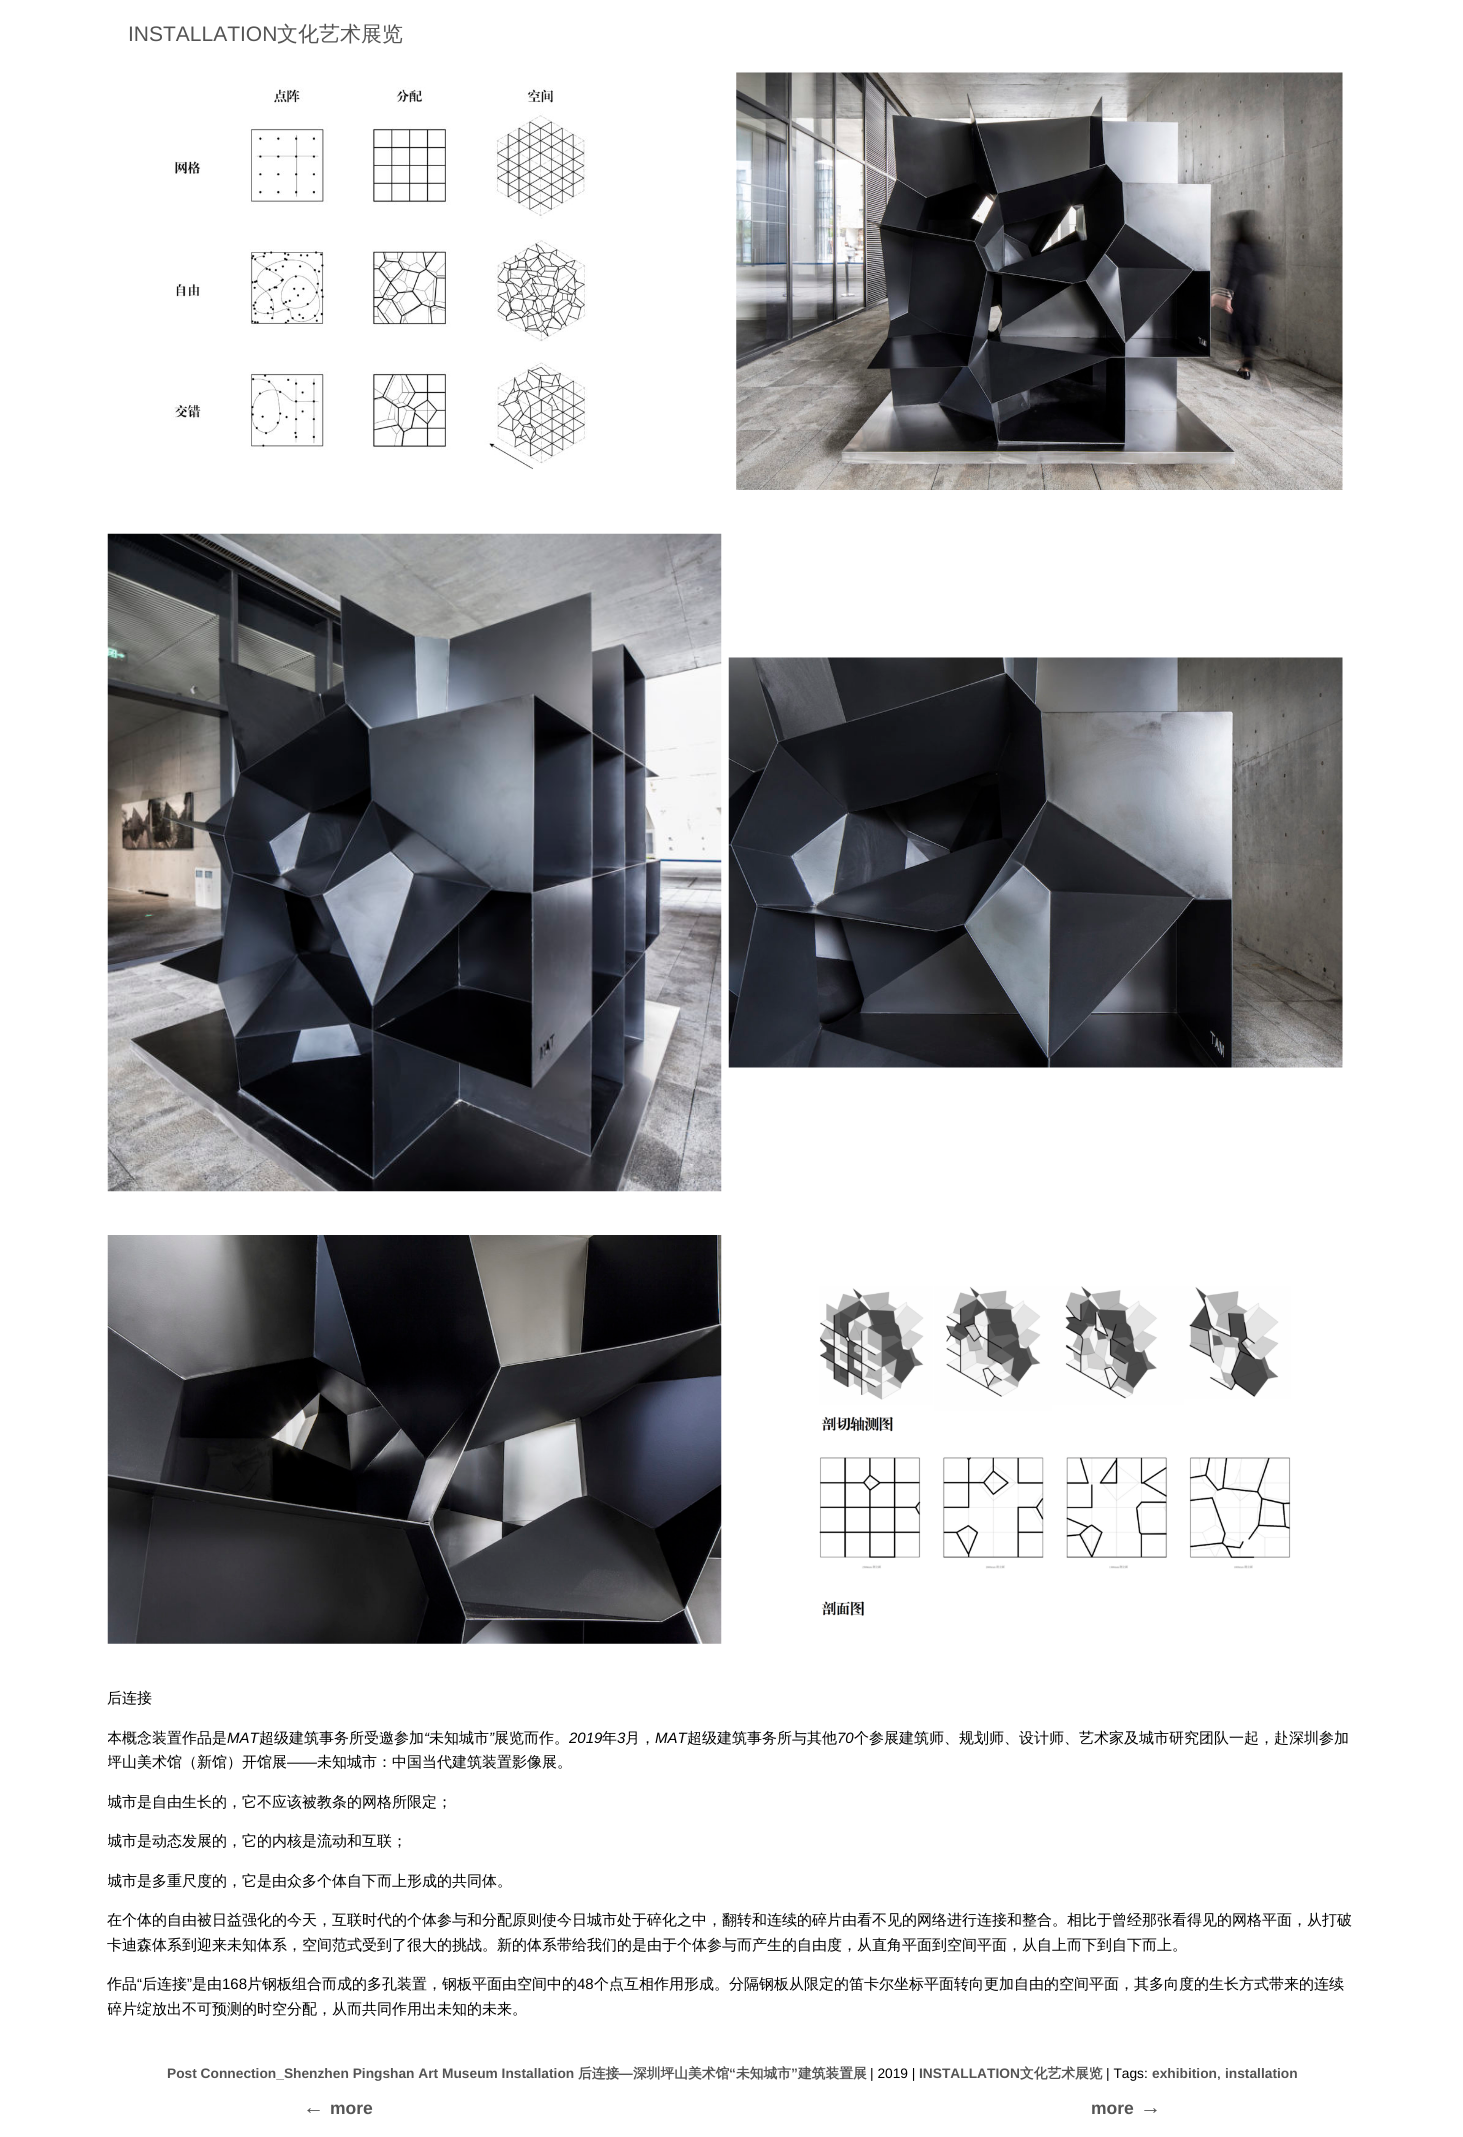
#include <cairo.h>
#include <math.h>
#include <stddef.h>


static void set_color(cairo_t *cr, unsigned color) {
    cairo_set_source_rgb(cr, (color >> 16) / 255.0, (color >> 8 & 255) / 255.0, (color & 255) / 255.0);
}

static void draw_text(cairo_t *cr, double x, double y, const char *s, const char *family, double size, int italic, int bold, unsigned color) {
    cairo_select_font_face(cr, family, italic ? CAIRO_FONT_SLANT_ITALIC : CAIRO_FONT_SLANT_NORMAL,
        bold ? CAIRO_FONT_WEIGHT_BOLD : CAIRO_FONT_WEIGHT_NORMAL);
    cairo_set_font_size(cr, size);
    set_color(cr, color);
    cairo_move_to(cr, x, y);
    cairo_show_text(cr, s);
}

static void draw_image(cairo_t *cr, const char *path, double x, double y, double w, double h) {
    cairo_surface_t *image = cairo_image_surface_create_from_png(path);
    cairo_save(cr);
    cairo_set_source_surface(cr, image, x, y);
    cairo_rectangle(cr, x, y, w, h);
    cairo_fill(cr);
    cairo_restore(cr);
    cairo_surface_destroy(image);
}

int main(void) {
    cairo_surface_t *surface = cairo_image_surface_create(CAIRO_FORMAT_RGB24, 1463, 2137);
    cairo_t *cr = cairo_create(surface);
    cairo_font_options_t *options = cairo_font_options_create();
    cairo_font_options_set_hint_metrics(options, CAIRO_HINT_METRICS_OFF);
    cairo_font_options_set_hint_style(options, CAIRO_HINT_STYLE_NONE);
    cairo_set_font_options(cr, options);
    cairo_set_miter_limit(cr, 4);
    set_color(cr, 0xFFFFFF);
    cairo_paint(cr);
    draw_text(cr, 128, 41, "INSTALLATION", "Liberation Sans", 21, 0, 0, 0x545454);
    draw_text(cr, 277, 41, "文化艺术展览", "WenQuanYi Zen Hei Medium", 21, 0, 0, 0x545454);
    draw_image(cr, "assets/img1.png", 171, 87, 417, 383);
    draw_image(cr, "assets/img2.png", 736, 72, 607, 418);
    draw_image(cr, "assets/img3.png", 107, 533, 615, 659);
    draw_image(cr, "assets/img4.png", 728, 657, 615, 411);
    draw_image(cr, "assets/img5.png", 107, 1235, 615, 409);
    draw_image(cr, "assets/img6.png", 819, 1286, 472, 330);
    draw_text(cr, 107, 1703, "后连接", "WenQuanYi Zen Hei Medium", 15, 0, 0, 0x000000);
    cairo_save(cr);
    cairo_rectangle(cr, 108, 60, 1250, 1978);
    cairo_clip(cr);
    draw_text(cr, 107, 1743, "本概念装置作品是", "WenQuanYi Zen Hei Medium", 15, 0, 0, 0x000000);
    cairo_restore(cr);
    draw_text(cr, 227, 1743, "MAT", "Liberation Sans", 15, 1, 0, 0x000000);
    draw_text(cr, 259, 1743, "超级建筑事务所受邀参加", "WenQuanYi Zen Hei Medium", 15, 0, 0, 0x000000);
    draw_text(cr, 424, 1743, "“", "Liberation Sans", 15, 1, 0, 0x000000);
    draw_text(cr, 429, 1743, "未知城市", "WenQuanYi Zen Hei Medium", 15, 0, 0, 0x000000);
    draw_text(cr, 489, 1743, "”", "Liberation Sans", 15, 1, 0, 0x000000);
    draw_text(cr, 494, 1743, "展览而作。", "WenQuanYi Zen Hei Medium", 15, 0, 0, 0x000000);
    draw_text(cr, 569, 1743, "2019", "Liberation Sans", 15, 1, 0, 0x000000);
    draw_text(cr, 602, 1743, "年", "WenQuanYi Zen Hei Medium", 15, 0, 0, 0x000000);
    draw_text(cr, 617, 1743, "3", "Liberation Sans", 15, 1, 0, 0x000000);
    draw_text(cr, 625, 1743, "月，", "WenQuanYi Zen Hei Medium", 15, 0, 0, 0x000000);
    draw_text(cr, 655, 1743, "MAT", "Liberation Sans", 15, 1, 0, 0x000000);
    draw_text(cr, 687, 1743, "超级建筑事务所与其他", "WenQuanYi Zen Hei Medium", 15, 0, 0, 0x000000);
    draw_text(cr, 837, 1743, "70", "Liberation Sans", 15, 1, 0, 0x000000);
    draw_text(cr, 854, 1743, "个参展建筑师、规划师、设计师、艺术家及城市研究团队一起，赴深圳参加", "WenQuanYi Zen Hei Medium", 15, 0, 0, 0x000000);
    cairo_save(cr);
    cairo_rectangle(cr, 108, 60, 1250, 1978);
    cairo_clip(cr);
    draw_text(cr, 107, 1767, "坪山美术馆（新馆）开馆展", "WenQuanYi Zen Hei Medium", 15, 0, 0, 0x000000);
    cairo_restore(cr);
    draw_text(cr, 287, 1767, "——", "Liberation Sans", 15, 1, 0, 0x000000);
    draw_text(cr, 317, 1767, "未知城市：中国当代建筑装置影像展。", "WenQuanYi Zen Hei Medium", 15, 0, 0, 0x000000);
    cairo_save(cr);
    cairo_rectangle(cr, 108, 60, 1250, 1978);
    cairo_clip(cr);
    draw_text(cr, 107, 1807, "城市是自由生长的，它不应该被教条的网格所限定；", "WenQuanYi Zen Hei Medium", 15, 0, 0, 0x000000);
    draw_text(cr, 107, 1846, "城市是动态发展的，它的内核是流动和互联；", "WenQuanYi Zen Hei Medium", 15, 0, 0, 0x000000);
    draw_text(cr, 107, 1886, "城市是多重尺度的，它是由众多个体自下而上形成的共同体。", "WenQuanYi Zen Hei Medium", 15, 0, 0, 0x000000);
    cairo_restore(cr);
    draw_text(cr, 107, 1925, "在个体的自由被日益强化的今天，互联时代的个体参与和分配原则使今日城市处于碎化之中，翻转和连续的碎片由看不见的网络进行连接和整合。相比于曾经那张看得见的网格平面，从打破", "WenQuanYi Zen Hei Medium", 15, 0, 0, 0x000000);
    draw_text(cr, 107, 1950, "卡迪森体系到迎来未知体系，空间范式受到了很大的挑战。新的体系带给我们的是由于个体参与而产生的自由度，从直角平面到空间平面，从自上而下到自下而上。", "WenQuanYi Zen Hei Medium", 15, 0, 0, 0x000000);
    draw_text(cr, 107, 1989, "作品", "WenQuanYi Zen Hei Medium", 15, 0, 0, 0x000000);
    draw_text(cr, 137, 1989, "“", "Liberation Sans", 15, 0, 0, 0x000000);
    draw_text(cr, 142, 1989, "后连接", "WenQuanYi Zen Hei Medium", 15, 0, 0, 0x000000);
    draw_text(cr, 187, 1989, "”", "Liberation Sans", 15, 0, 0, 0x000000);
    draw_text(cr, 192, 1989, "是由", "WenQuanYi Zen Hei Medium", 15, 0, 0, 0x000000);
    draw_text(cr, 222, 1989, "168", "Liberation Sans", 15, 0, 0, 0x000000);
    draw_text(cr, 247, 1989, "片钢板组合而成的多孔装置，钢板平面由空间中的", "WenQuanYi Zen Hei Medium", 15, 0, 0, 0x000000);
    draw_text(cr, 577, 1989, "48", "Liberation Sans", 15, 0, 0, 0x000000);
    draw_text(cr, 594, 1989, "个点互相作用形成。分隔钢板从限定的笛卡尔坐标平面转向更加自由的空间平面，其多向度的生长方式带来的连续", "WenQuanYi Zen Hei Medium", 15, 0, 0, 0x000000);
    cairo_save(cr);
    cairo_rectangle(cr, 108, 60, 1250, 1978);
    cairo_clip(cr);
    draw_text(cr, 107, 2014, "碎片绽放出不可预测的时空分配，从而共同作用出未知的未来。", "WenQuanYi Zen Hei Medium", 15, 0, 0, 0x000000);
    cairo_restore(cr);
    draw_text(cr, 167, 2078, "Post Connection_Shenzhen Pingshan Art Museum Installation", "Liberation Sans", 13.75, 0, 1, 0x545454);
    draw_text(cr, 578, 2078, "后连接", "WenQuanYi Zen Hei", 13.75, 0, 1, 0x545454);
    draw_text(cr, 619, 2078, "—", "Liberation Sans", 13.75, 0, 1, 0x545454);
    draw_text(cr, 633, 2078, "深圳坪山美术馆", "WenQuanYi Zen Hei", 13.75, 0, 1, 0x545454);
    draw_text(cr, 729, 2078, "“", "Liberation Sans", 13.75, 0, 1, 0x545454);
    draw_text(cr, 736, 2078, "未知城市", "WenQuanYi Zen Hei", 13.75, 0, 1, 0x545454);
    draw_text(cr, 791, 2078, "”", "Liberation Sans", 13.75, 0, 1, 0x545454);
    draw_text(cr, 798, 2078, "建筑装置展", "WenQuanYi Zen Hei", 13.75, 0, 1, 0x545454);
    draw_text(cr, 870, 2078, "| 2019 |", "Liberation Sans", 13.75, 0, 0, 0x000000);
    draw_text(cr, 919, 2078, "INSTALLATION", "Liberation Sans", 13.75, 0, 1, 0x545454);
    draw_text(cr, 1020, 2078, "文化艺术展览", "WenQuanYi Zen Hei", 13.75, 0, 1, 0x545454);
    draw_text(cr, 1106, 2078, "| Tags:", "Liberation Sans", 13.75, 0, 0, 0x000000);
    draw_text(cr, 1152, 2078, "exhibition", "Liberation Sans", 13.75, 0, 1, 0x545454);
    draw_text(cr, 1225, 2078, "installation", "Liberation Sans", 13.75, 0, 1, 0x545454);
    draw_text(cr, 1217, 2078, ",", "Liberation Sans", 13.75, 0, 0, 0x000000);
    draw_text(cr, 303, 2114, "←", "Liberation Sans", 21, 0, 1, 0x545454);
    draw_text(cr, 330, 2114, "more", "Liberation Sans", 17.5, 0, 1, 0x545454);
    draw_text(cr, 1091, 2114, "more", "Liberation Sans", 17.5, 0, 1, 0x545454);
    draw_text(cr, 1140, 2114, "→", "Liberation Sans", 21, 0, 1, 0x545454);
    cairo_surface_write_to_png(surface, "output.png");
    cairo_font_options_destroy(options);
    cairo_destroy(cr);
    cairo_surface_destroy(surface);
    return 0;
}
